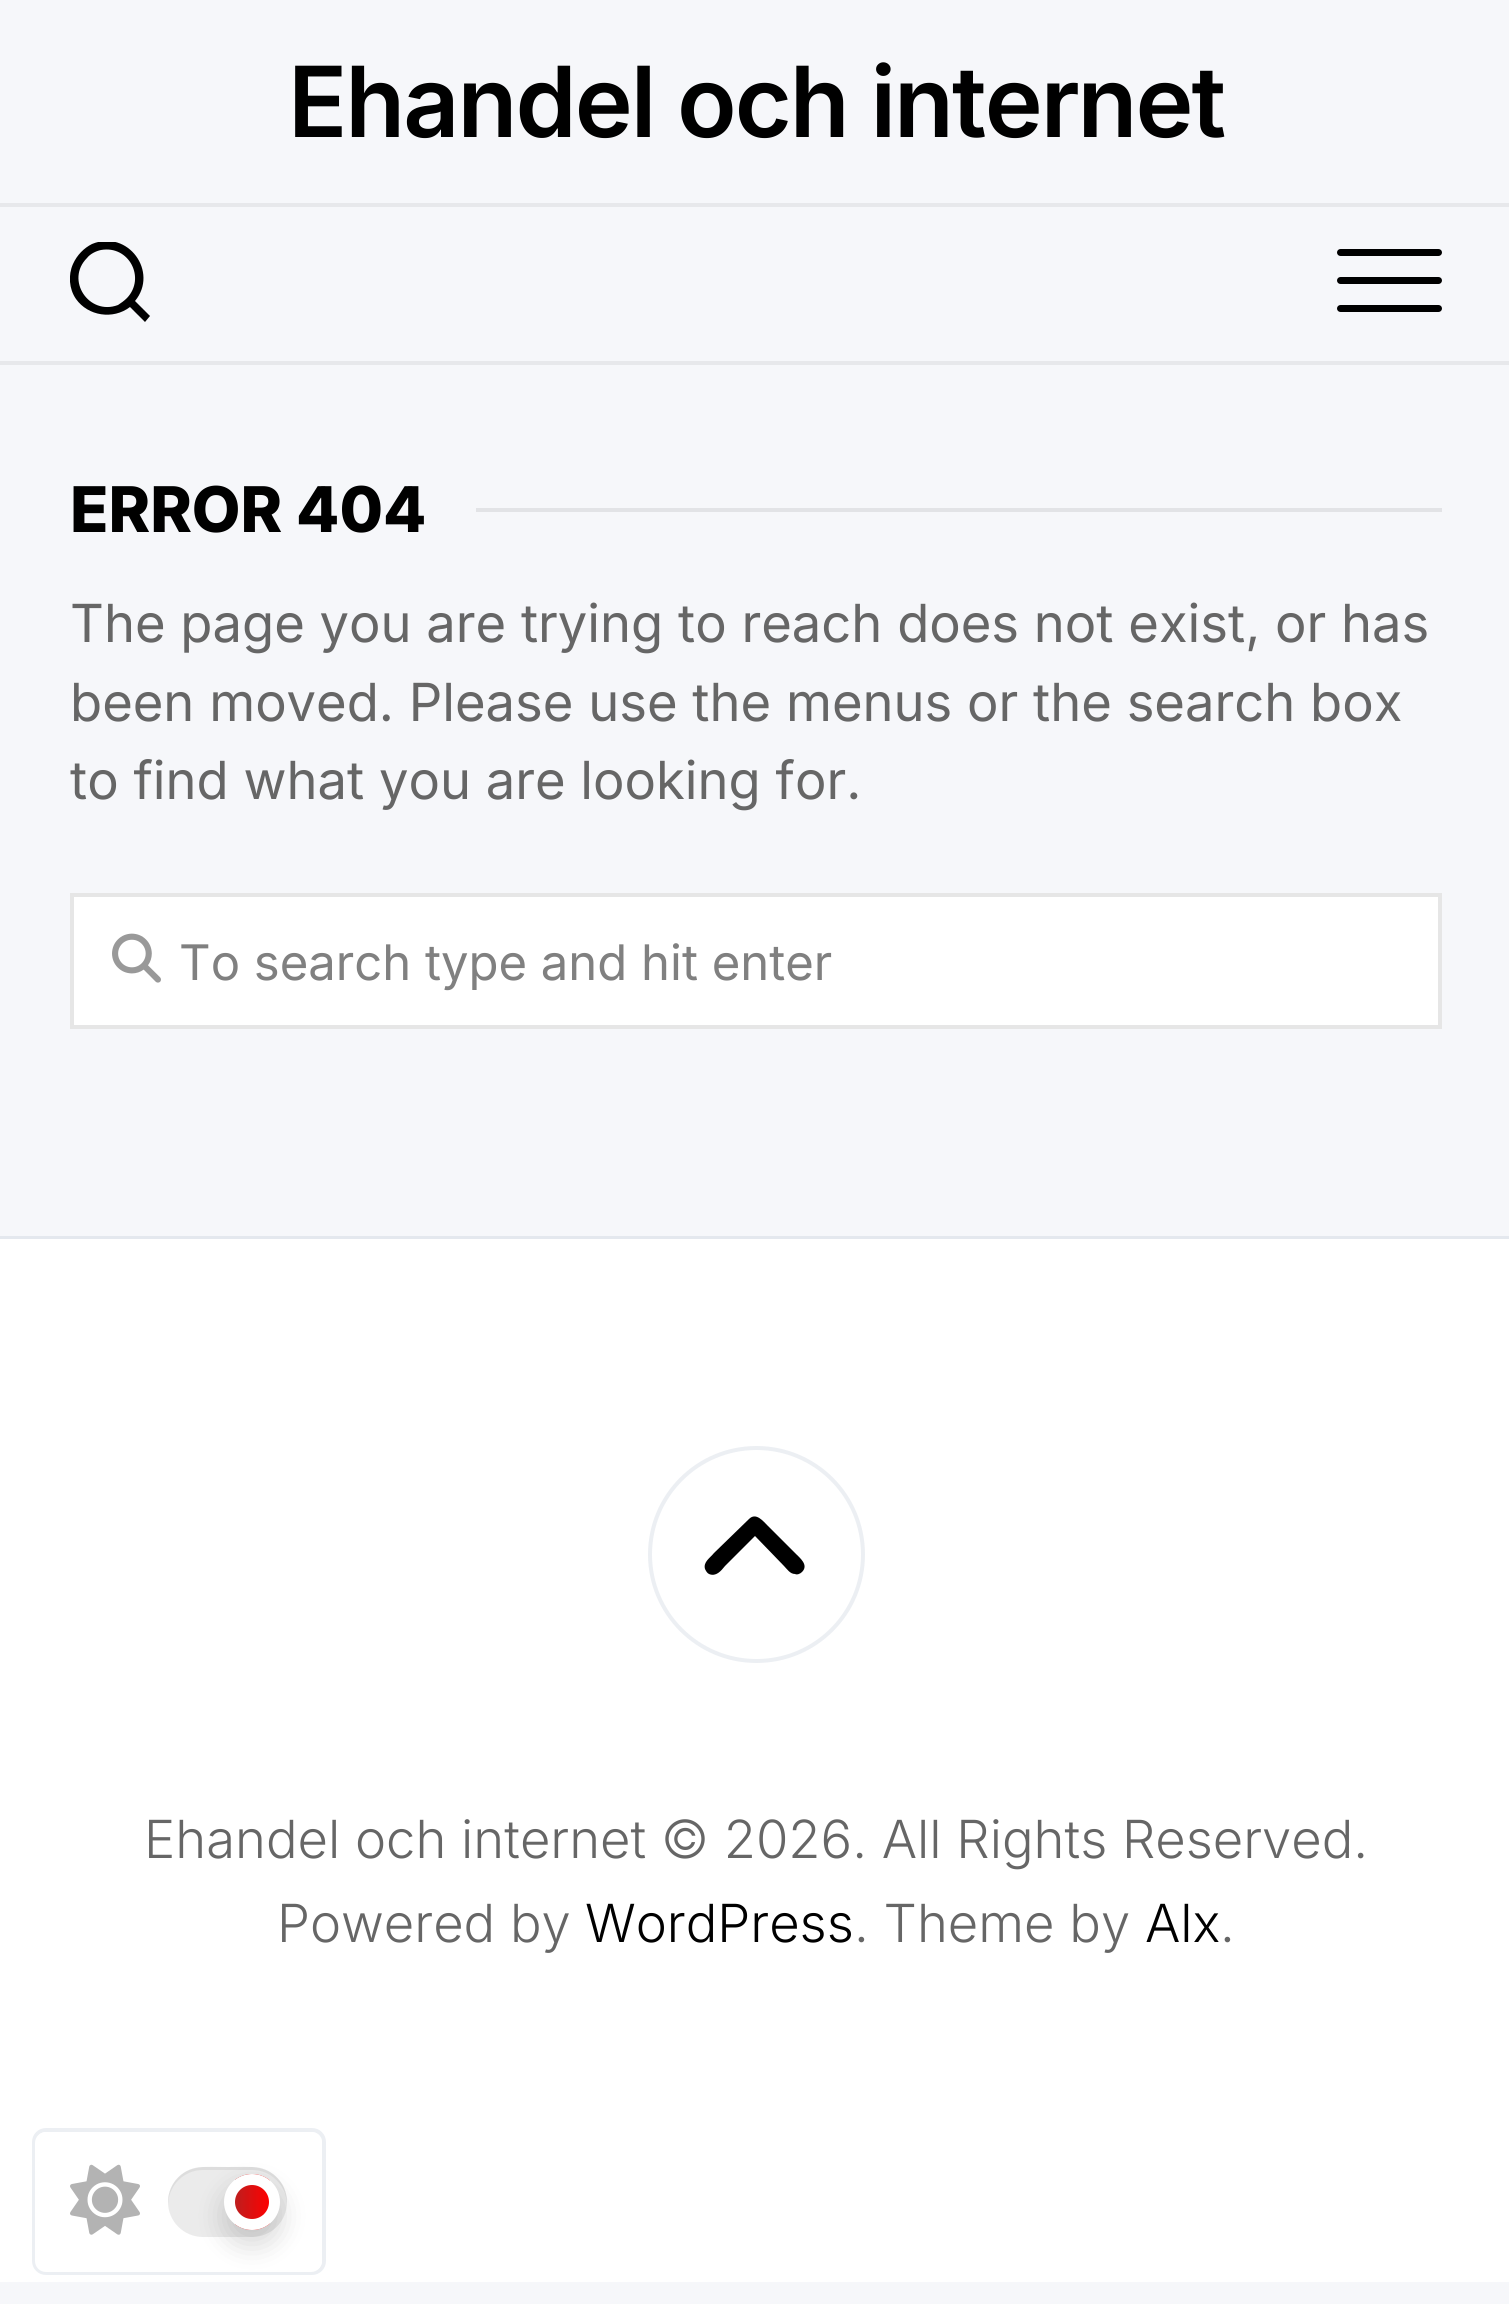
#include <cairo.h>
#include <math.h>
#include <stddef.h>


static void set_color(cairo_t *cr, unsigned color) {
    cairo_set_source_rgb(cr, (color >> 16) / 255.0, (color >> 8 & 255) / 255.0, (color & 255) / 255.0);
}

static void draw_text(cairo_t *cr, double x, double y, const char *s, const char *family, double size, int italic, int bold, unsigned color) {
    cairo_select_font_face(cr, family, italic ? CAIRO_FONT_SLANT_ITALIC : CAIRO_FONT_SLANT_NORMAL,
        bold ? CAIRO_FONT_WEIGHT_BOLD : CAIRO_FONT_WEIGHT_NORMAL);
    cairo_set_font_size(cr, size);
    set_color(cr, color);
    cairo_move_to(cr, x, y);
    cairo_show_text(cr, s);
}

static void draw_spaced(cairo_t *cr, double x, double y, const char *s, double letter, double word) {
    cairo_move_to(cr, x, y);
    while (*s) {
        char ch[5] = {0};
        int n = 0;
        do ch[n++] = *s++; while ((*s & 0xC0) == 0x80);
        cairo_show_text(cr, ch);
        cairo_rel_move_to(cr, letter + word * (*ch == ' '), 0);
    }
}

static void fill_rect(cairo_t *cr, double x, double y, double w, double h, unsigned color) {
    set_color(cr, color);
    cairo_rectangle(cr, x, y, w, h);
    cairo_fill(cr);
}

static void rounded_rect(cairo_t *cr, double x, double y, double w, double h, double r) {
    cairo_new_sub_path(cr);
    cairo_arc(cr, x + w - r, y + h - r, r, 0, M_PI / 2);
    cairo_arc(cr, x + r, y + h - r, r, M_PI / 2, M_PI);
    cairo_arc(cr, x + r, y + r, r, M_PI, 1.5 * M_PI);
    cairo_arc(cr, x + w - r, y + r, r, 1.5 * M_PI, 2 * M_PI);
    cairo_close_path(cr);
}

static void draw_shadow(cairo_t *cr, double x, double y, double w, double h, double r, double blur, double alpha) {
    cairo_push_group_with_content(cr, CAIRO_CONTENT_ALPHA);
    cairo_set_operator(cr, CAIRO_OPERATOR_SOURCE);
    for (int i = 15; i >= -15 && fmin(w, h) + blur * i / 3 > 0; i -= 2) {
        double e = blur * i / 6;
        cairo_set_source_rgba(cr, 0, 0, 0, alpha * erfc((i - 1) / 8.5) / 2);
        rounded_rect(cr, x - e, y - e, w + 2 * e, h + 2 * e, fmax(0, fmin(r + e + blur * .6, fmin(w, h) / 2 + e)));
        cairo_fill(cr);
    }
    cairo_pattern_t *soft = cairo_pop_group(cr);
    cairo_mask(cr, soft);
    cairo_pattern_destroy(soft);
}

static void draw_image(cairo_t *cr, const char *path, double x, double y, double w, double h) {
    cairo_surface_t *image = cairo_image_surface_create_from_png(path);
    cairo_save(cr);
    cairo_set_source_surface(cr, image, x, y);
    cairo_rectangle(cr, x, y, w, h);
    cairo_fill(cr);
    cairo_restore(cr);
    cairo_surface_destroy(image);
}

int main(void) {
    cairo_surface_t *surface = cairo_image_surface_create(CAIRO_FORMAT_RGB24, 1509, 2304);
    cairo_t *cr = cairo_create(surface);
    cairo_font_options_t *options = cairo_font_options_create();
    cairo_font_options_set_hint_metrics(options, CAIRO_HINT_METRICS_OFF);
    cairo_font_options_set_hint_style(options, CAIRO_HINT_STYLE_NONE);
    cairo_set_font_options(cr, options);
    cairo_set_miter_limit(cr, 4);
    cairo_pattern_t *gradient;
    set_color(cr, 0xF6F7FA);
    cairo_paint(cr);
    fill_rect(cr, 0, 203, 1509, 4, 0xE7E8EB);
    cairo_select_font_face(cr, "Inter SemiBold", CAIRO_FONT_SLANT_NORMAL, CAIRO_FONT_WEIGHT_NORMAL);
    cairo_set_font_size(cr, 98);
    set_color(cr, 0x000000);
    draw_spaced(cr, 288, 137, "Ehandel och internet", -2, 0);
    cairo_save(cr);
    cairo_rectangle(cr, 70, 242, 81, 80);
    cairo_clip(cr);
    cairo_new_path(cr);
    cairo_move_to(cr, 135, 301);
    cairo_line_to(cr, 150, 316);
    cairo_line_to(cr, 145, 322);
    cairo_line_to(cr, 130, 307);
    cairo_curve_to(cr, 113, 320, 88, 316, 76, 299);
    cairo_curve_to(cr, 69, 289, 68, 275, 73, 264);
    cairo_curve_to(cr, 77, 255, 84, 248, 92, 244);
    cairo_curve_to(cr, 128, 229, 159, 272, 135, 301);
    cairo_close_path(cr);
    cairo_move_to(cr, 127, 298);
    cairo_curve_to(cr, 146, 278, 129, 245, 101, 250);
    cairo_curve_to(cr, 96, 251, 90, 254, 87, 258);
    cairo_curve_to(cr, 65, 280, 89, 316, 118, 305);
    cairo_curve_to(cr, 121, 303, 124, 301, 127, 298);
    cairo_close_path(cr);
    cairo_fill(cr);
    cairo_restore(cr);
    fill_rect(cr, 0, 361, 1509, 4, 0xE7E8EB);
    set_color(cr, 0x000000);
    rounded_rect(cr, 1337, 249, 105, 7, 3.5);
    cairo_fill(cr);
    rounded_rect(cr, 1337, 277, 105, 7, 3.5);
    cairo_fill(cr);
    rounded_rect(cr, 1337, 305, 105, 7, 3.5);
    cairo_fill(cr);
    draw_text(cr, 70, 532, "ERROR 404", "Inter ExtraBold", 63, 0, 0, 0x000000);
    fill_rect(cr, 476, 508, 966, 4, 0xE2E3E6);
    draw_text(cr, 70, 642, "The page you are trying to reach does not exist, or has", "Inter", 52.5, 0, 0, 0x666666);
    draw_text(cr, 70, 721, "been moved. Please use the menus or the search box", "Inter", 52.5, 0, 0, 0x666666);
    draw_text(cr, 70, 799, "to find what you are looking for.", "Inter", 52.5, 0, 0, 0x666666);
    set_color(cr, 0xFFFFFF);
    cairo_rectangle(cr, 72, 895, 1368, 132);
    cairo_fill_preserve(cr);
    set_color(cr, 0xE6E6E6);
    cairo_set_line_width(cr, 4);
    cairo_stroke(cr);
    draw_image(cr, "assets/img1.png", 112, 933, 49, 50);
    draw_text(cr, 179, 980, "To search type and hit enter", "Inter", 49, 0, 0, 0x808080);
    cairo_save(cr);
    cairo_rectangle(cr, 0, 0, 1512, 2282);
    cairo_clip(cr);
    cairo_rectangle(cr, -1, 1238, 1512, 1046);
    set_color(cr, 0xE4E8EE);
    cairo_stroke(cr);
    cairo_restore(cr);
    fill_rect(cr, 0, 1239, 1509, 1043, 0xFFFFFF);
    rounded_rect(cr, 34, 2130, 290, 143, 12);
    cairo_set_source_rgba(cr, 0.071, 0.216, 0.412, 0.08);
    cairo_stroke(cr);
    set_color(cr, 0xFFFFFF);
    rounded_rect(cr, 35, 2132, 287, 140, 11);
    cairo_fill(cr);
    draw_image(cr, "assets/img2.png", 70, 2164, 70, 71);
    set_color(cr, 0xEBEBEB);
    rounded_rect(cr, 168, 2167, 119, 70, 35);
    cairo_fill(cr);
    cairo_set_source_rgba(cr, 0, 0, 0, 0.06);
    cairo_new_path(cr);
    cairo_move_to(cr, 203, 2170);
    cairo_line_to(cr, 252, 2170);
    cairo_curve_to(cr, 271, 2170, 286, 2185, 287, 2204);
    cairo_curve_to(cr, 288, 2187, 276, 2171, 259, 2168);
    cairo_curve_to(cr, 250, 2166, 237, 2167, 228, 2167);
    cairo_curve_to(cr, 218, 2167, 205, 2166, 196, 2168);
    cairo_curve_to(cr, 179, 2171, 167, 2187, 168, 2204);
    cairo_curve_to(cr, 169, 2185, 184, 2170, 203, 2170);
    cairo_close_path(cr);
    cairo_fill(cr);
    set_color(cr, 0x000000);
    draw_shadow(cr, 224, 2188, 56, 56, 28, 14, 0.16);
    cairo_save(cr);
    rounded_rect(cr, 224, 2174, 56, 56, 28);
    cairo_clip(cr);
    gradient = cairo_pattern_create_linear(235, 2202, 270, 2202);
    cairo_pattern_add_color_stop_rgba(gradient, 0, 0.745, 0.118, 0.118, 1);
    cairo_pattern_add_color_stop_rgba(gradient, 1, 1, 0, 0, 1);
    cairo_set_source(cr, gradient);
    cairo_pattern_destroy(gradient);
    cairo_rectangle(cr, 235, 2174, 35, 56);
    cairo_fill(cr);
    cairo_restore(cr);
    cairo_arc(cr, 252, 2202, 22.5, 0, 2 * M_PI);
    set_color(cr, 0xFFFFFF);
    cairo_set_line_width(cr, 11);
    cairo_stroke(cr);
    cairo_arc(cr, 756.5, 1554.5, 106.5, 0, 2 * M_PI);
    cairo_set_source_rgba(cr, 0.071, 0.216, 0.412, 0.08);
    cairo_set_line_width(cr, 4);
    cairo_stroke(cr);
    set_color(cr, 0x000000);
    cairo_new_path(cr);
    cairo_move_to(cr, 749, 1519);
    cairo_curve_to(cr, 756, 1512, 763, 1521, 768, 1526);
    cairo_line_to(cr, 795, 1553);
    cairo_curve_to(cr, 800, 1558, 809, 1565, 802, 1572);
    cairo_curve_to(cr, 800, 1574, 797, 1575, 795, 1574);
    cairo_curve_to(cr, 790, 1574, 787, 1569, 784, 1566);
    cairo_line_to(cr, 755, 1536);
    cairo_line_to(cr, 725, 1566);
    cairo_curve_to(cr, 721, 1571, 716, 1577, 709, 1574);
    cairo_curve_to(cr, 707, 1573, 706, 1571, 705, 1569);
    cairo_curve_to(cr, 703, 1562, 710, 1558, 714, 1553);
    cairo_close_path(cr);
    cairo_fill(cr);
    draw_text(cr, 144, 1858, "Ehandel och internet © 2026. All Rights Reserved.", "Inter Light", 52.5, 0, 0, 0x666666);
    draw_text(cr, 277, 1942, "Powered by", "Inter Light", 52.5, 0, 0, 0x666666);
    draw_text(cr, 585, 1942, "WordPress", "Inter Light", 52.5, 0, 0, 0x000000);
    draw_text(cr, 854, 1942, ". Theme by", "Inter Light", 52.5, 0, 0, 0x666666);
    draw_text(cr, 1145, 1942, "Alx", "Inter Light", 52.5, 0, 0, 0x000000);
    draw_text(cr, 1220, 1942, ".", "Inter Light", 52.5, 0, 0, 0x666666);
    cairo_surface_write_to_png(surface, "output.png");
    cairo_font_options_destroy(options);
    cairo_destroy(cr);
    cairo_surface_destroy(surface);
    return 0;
}
